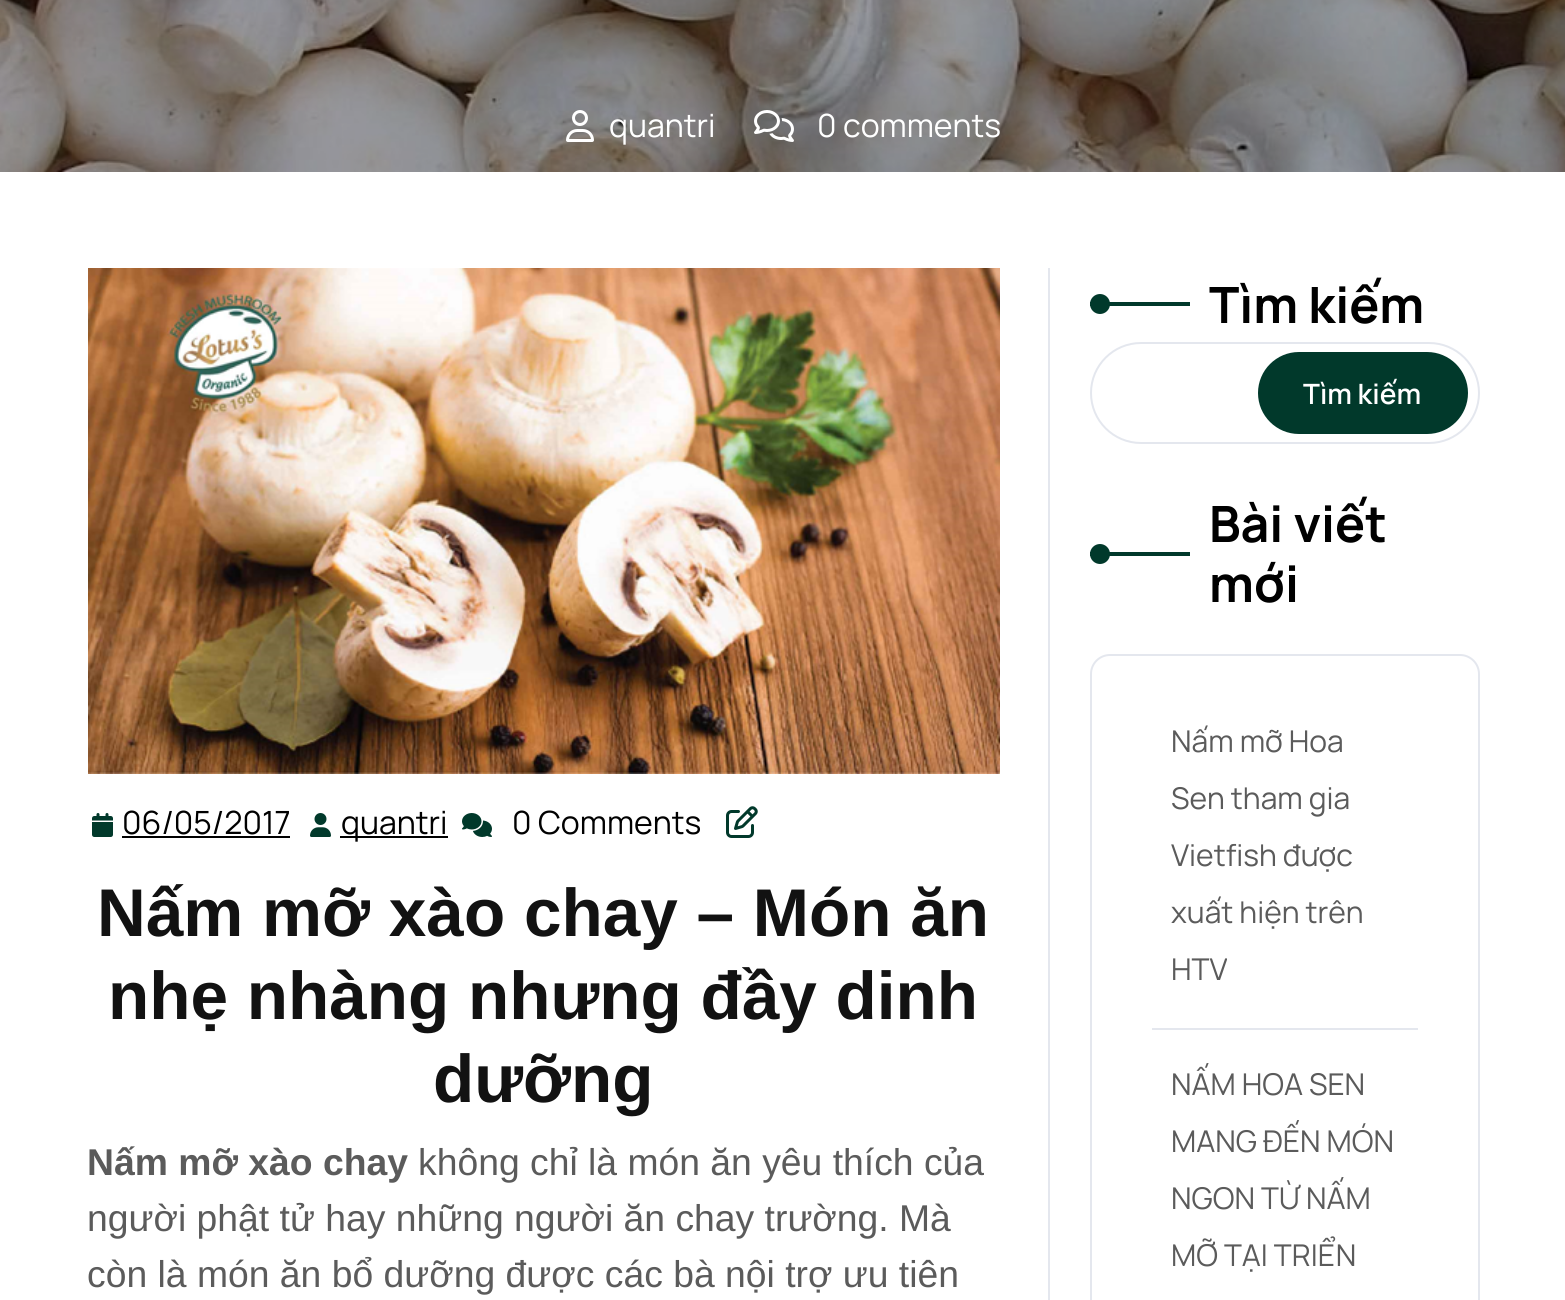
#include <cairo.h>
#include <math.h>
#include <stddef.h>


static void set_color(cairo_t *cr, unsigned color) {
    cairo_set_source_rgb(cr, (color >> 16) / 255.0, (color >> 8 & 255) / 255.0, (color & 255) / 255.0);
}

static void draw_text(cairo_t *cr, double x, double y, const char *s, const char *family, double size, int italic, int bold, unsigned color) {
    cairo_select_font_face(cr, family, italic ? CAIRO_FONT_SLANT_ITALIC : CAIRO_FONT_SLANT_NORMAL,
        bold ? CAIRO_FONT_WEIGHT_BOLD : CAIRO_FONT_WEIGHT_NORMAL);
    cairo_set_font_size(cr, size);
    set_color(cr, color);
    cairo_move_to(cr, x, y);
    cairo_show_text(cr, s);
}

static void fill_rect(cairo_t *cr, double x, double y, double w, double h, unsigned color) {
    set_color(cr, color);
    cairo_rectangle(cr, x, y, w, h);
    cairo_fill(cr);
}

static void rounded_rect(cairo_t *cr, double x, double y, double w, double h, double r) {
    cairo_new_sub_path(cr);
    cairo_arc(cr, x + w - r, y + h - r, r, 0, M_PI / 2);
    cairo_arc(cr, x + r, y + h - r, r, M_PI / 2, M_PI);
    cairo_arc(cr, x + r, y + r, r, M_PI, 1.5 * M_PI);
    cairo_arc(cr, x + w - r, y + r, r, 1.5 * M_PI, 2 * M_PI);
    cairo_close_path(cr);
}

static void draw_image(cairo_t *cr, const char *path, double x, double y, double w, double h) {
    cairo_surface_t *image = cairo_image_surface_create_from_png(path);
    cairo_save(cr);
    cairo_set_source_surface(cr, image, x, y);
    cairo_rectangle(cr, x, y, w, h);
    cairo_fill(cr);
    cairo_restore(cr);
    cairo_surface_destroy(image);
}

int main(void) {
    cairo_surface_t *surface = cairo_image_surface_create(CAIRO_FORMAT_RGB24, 1565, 1300);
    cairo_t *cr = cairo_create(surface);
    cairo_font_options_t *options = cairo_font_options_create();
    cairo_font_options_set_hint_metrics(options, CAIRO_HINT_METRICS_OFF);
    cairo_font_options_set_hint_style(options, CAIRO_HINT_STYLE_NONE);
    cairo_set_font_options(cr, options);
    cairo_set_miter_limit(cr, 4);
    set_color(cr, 0xFFFFFF);
    cairo_paint(cr);
    draw_image(cr, "assets/img1.png", 0, 0, 1565, 172);
    draw_image(cr, "assets/img2.png", 566, 110, 28, 32);
    draw_text(cr, 609, 137, "quantri", "Manrope", 32, 0, 0, 0xFFFFFF);
    draw_image(cr, "assets/img3.png", 754, 110, 40, 32);
    draw_text(cr, 817, 137, "0 comments", "Manrope", 32, 0, 0, 0xFFFFFF);
    draw_image(cr, "assets/img4.png", 88, 268, 912, 506);
    draw_image(cr, "assets/img5.png", 92, 813, 21, 24);
    draw_text(cr, 122, 834, "06/05/2017", "Manrope", 32, 0, 0, 0x000000);
    fill_rect(cr, 122, 836, 168, 2, 0x000000);
    draw_image(cr, "assets/img6.png", 310, 813, 21, 24);
    fill_rect(cr, 340, 836, 108, 2, 0x000000);
    draw_text(cr, 341, 834, "quantri", "Manrope", 32, 0, 0, 0x000000);
    draw_image(cr, "assets/img7.png", 462, 813, 30, 24);
    draw_text(cr, 512, 834, "0 Comments", "Manrope", 32, 0, 0, 0x000000);
    draw_image(cr, "assets/img8.png", 726, 806, 32, 32);
    draw_text(cr, 97, 936, "Nấm mỡ xào chay – Món ăn", "Liberation Sans", 67.5, 0, 1, 0x121212);
    draw_text(cr, 108, 1019, "nhẹ nhàng nhưng đầy dinh", "Liberation Sans", 67.5, 0, 1, 0x121212);
    draw_text(cr, 433, 1102, "dưỡng", "Liberation Sans", 67.5, 0, 1, 0x121212);
    draw_text(cr, 87, 1175, "Nấm mỡ xào chay", "Liberation Sans", 37.3, 0, 1, 0x5B5B5B);
    draw_text(cr, 418, 1175, "không chỉ là món ăn yêu thích của", "Liberation Sans", 37.3, 0, 0, 0x5B5B5B);
    draw_text(cr, 87, 1231, "người phật tử hay những người ăn chay trường. Mà", "Liberation Sans", 37.3, 0, 0, 0x5B5B5B);
    draw_text(cr, 87, 1287, "còn là món ăn bổ dưỡng được các bà nội trợ ưu tiên", "Liberation Sans", 37.3, 0, 0, 0x5B5B5B);
    fill_rect(cr, 1048, 268, 2, 1032, 0xE4E7EE);
    fill_rect(cr, 1090, 302, 100, 4, 0x01392B);
    cairo_new_path(cr);
    cairo_arc(cr, 1100, 304, 10, 0, 2 * M_PI);
    cairo_fill(cr);
    draw_text(cr, 1209, 323, "Tìm kiếm", "Manrope ExtraLight", 50, 0, 0, 0x000000);
    rounded_rect(cr, 1091, 343, 388, 100, 50);
    set_color(cr, 0xE4E7EE);
    cairo_stroke(cr);
    set_color(cr, 0x01392B);
    rounded_rect(cr, 1258, 352, 210, 82, 41);
    cairo_fill(cr);
    draw_text(cr, 1303, 404, "Tìm kiếm", "Manrope SemiBold", 28, 0, 0, 0xFFFFFF);
    draw_text(cr, 1209, 542, "Bài viết", "Manrope ExtraLight", 50, 0, 0, 0x000000);
    fill_rect(cr, 1090, 552, 100, 4, 0x01392B);
    cairo_new_path(cr);
    cairo_arc(cr, 1100, 554, 10, 0, 2 * M_PI);
    cairo_fill(cr);
    draw_text(cr, 1209, 602, "mới", "Manrope ExtraLight", 50, 0, 0, 0x000000);
    rounded_rect(cr, 1091, 655, 388, 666, 19);
    set_color(cr, 0xE4E7EE);
    cairo_stroke(cr);
    fill_rect(cr, 1152, 1028, 266, 2, 0xE4E7EE);
    draw_text(cr, 1171, 752, "Nấm mỡ Hoa", "Manrope", 30, 0, 0, 0x5B5B5B);
    draw_text(cr, 1171, 809, "Sen tham gia", "Manrope", 30, 0, 0, 0x5B5B5B);
    draw_text(cr, 1171, 866, "Vietfish được", "Manrope", 30, 0, 0, 0x5B5B5B);
    draw_text(cr, 1171, 923, "xuất hiện trên", "Manrope", 30, 0, 0, 0x5B5B5B);
    draw_text(cr, 1171, 980, "HTV", "Manrope", 30, 0, 0, 0x5B5B5B);
    draw_text(cr, 1171, 1095, "NẤM HOA SEN", "Manrope", 30, 0, 0, 0x5B5B5B);
    draw_text(cr, 1171, 1152, "MANG ĐẾN MÓN", "Manrope", 30, 0, 0, 0x5B5B5B);
    draw_text(cr, 1171, 1209, "NGON TỪ NẤM", "Manrope", 30, 0, 0, 0x5B5B5B);
    draw_text(cr, 1171, 1266, "MỠ TẠI TRIỂN", "Manrope", 30, 0, 0, 0x5B5B5B);
    cairo_surface_write_to_png(surface, "output.png");
    cairo_font_options_destroy(options);
    cairo_destroy(cr);
    cairo_surface_destroy(surface);
    return 0;
}
